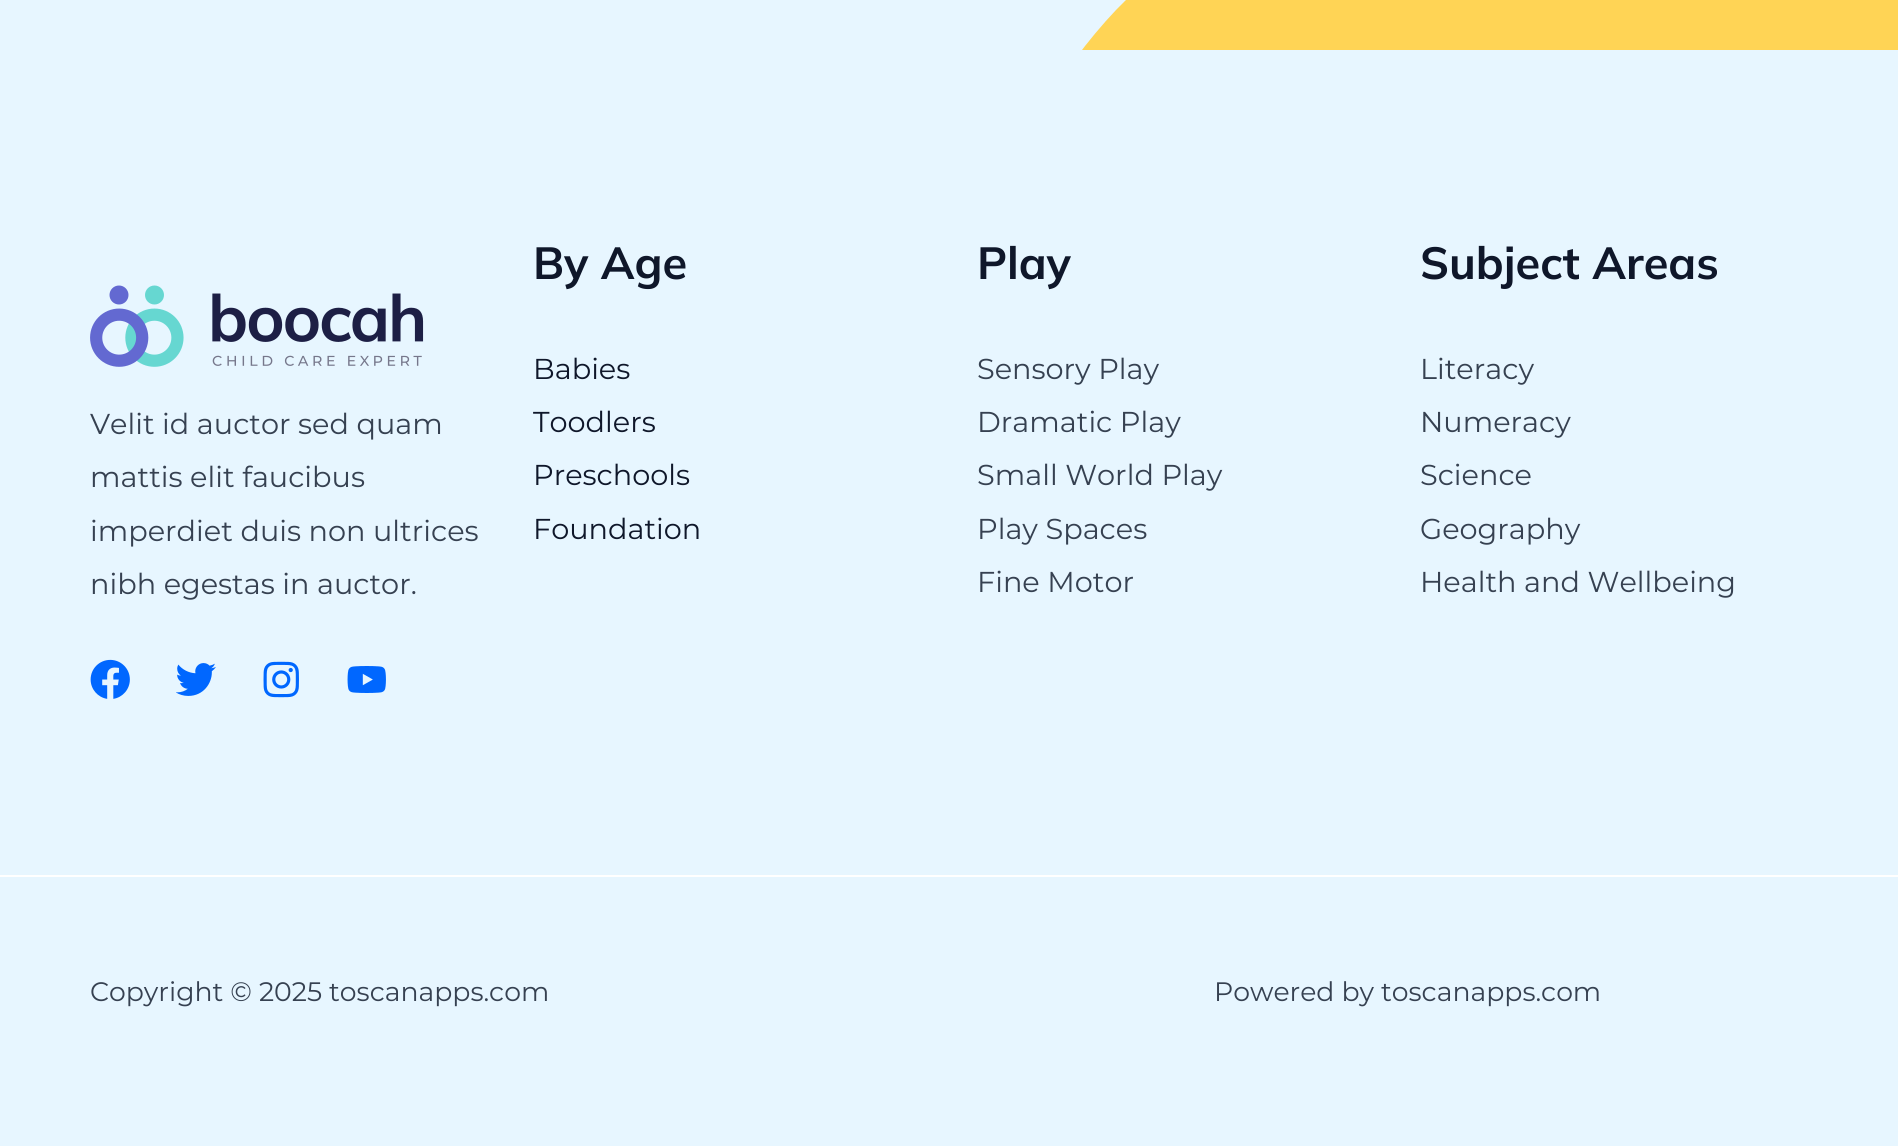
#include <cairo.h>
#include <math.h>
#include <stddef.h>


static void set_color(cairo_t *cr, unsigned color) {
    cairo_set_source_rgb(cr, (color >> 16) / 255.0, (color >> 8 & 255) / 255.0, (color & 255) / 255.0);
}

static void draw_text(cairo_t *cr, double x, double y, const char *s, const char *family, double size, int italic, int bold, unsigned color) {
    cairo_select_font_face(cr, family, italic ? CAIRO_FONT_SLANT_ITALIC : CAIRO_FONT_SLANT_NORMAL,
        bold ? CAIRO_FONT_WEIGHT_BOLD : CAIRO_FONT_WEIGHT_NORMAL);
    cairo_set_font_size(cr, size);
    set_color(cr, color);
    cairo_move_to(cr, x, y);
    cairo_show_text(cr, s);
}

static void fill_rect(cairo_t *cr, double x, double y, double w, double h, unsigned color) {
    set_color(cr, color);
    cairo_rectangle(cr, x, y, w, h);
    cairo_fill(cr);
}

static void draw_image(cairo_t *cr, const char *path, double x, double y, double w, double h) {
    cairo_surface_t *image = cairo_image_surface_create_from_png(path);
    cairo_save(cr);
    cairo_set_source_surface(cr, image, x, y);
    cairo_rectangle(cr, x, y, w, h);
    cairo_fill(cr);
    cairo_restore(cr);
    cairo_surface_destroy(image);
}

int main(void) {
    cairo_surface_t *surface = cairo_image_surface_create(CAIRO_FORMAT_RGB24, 1898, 1146);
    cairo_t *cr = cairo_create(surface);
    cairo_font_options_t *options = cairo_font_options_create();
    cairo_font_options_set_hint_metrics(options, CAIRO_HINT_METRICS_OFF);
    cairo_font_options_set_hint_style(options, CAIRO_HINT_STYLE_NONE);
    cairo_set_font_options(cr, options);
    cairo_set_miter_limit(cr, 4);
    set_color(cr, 0xE7F6FF);
    cairo_paint(cr);
    draw_image(cr, "assets/img1.png", 1082, 0, 816, 50);
    draw_image(cr, "assets/img2.png", 90, 285, 334, 82);
    draw_text(cr, 90, 434, "Velit id auctor sed quam", "Montserrat", 28.75, 0, 0, 0x364151);
    draw_text(cr, 90, 487, "mattis elit faucibus", "Montserrat", 28.75, 0, 0, 0x364151);
    draw_text(cr, 90, 541, "imperdiet duis non ultrices", "Montserrat", 28.75, 0, 0, 0x364151);
    draw_text(cr, 90, 594, "nibh egestas in auctor.", "Montserrat", 28.75, 0, 0, 0x364151);
    draw_image(cr, "assets/img3.png", 90, 659, 40, 40);
    draw_image(cr, "assets/img4.png", 176, 663, 40, 33);
    draw_image(cr, "assets/img5.png", 263, 661, 36, 37);
    draw_image(cr, "assets/img6.png", 347, 666, 39, 27);
    draw_text(cr, 533, 279, "By Age", "Mulish ExtraLight", 45, 0, 0, 0x0F172A);
    draw_text(cr, 533, 379, "Babies", "Montserrat", 28.75, 0, 0, 0x0F172A);
    draw_text(cr, 533, 432, "Toodlers", "Montserrat", 28.75, 0, 0, 0x0F172A);
    draw_text(cr, 533, 485, "Preschools", "Montserrat", 28.75, 0, 0, 0x0F172A);
    draw_text(cr, 533, 539, "Foundation", "Montserrat", 28.75, 0, 0, 0x0F172A);
    draw_text(cr, 977, 279, "Play", "Mulish ExtraLight", 45, 0, 0, 0x0F172A);
    draw_text(cr, 977, 379, "Sensory Play", "Montserrat", 28.75, 0, 0, 0x364151);
    draw_text(cr, 977, 432, "Dramatic Play", "Montserrat", 28.75, 0, 0, 0x364151);
    draw_text(cr, 977, 485, "Small World Play", "Montserrat", 28.75, 0, 0, 0x364151);
    draw_text(cr, 977, 539, "Play Spaces", "Montserrat", 28.75, 0, 0, 0x364151);
    draw_text(cr, 977, 592, "Fine Motor", "Montserrat", 28.75, 0, 0, 0x364151);
    draw_text(cr, 1420, 279, "Subject Areas", "Mulish ExtraLight", 45, 0, 0, 0x0F172A);
    draw_text(cr, 1420, 379, "Literacy", "Montserrat", 28.75, 0, 0, 0x364151);
    draw_text(cr, 1420, 432, "Numeracy", "Montserrat", 28.75, 0, 0, 0x364151);
    draw_text(cr, 1420, 485, "Science", "Montserrat", 28.75, 0, 0, 0x364151);
    draw_text(cr, 1420, 539, "Geography", "Montserrat", 28.75, 0, 0, 0x364151);
    draw_text(cr, 1420, 592, "Health and Wellbeing", "Montserrat", 28.75, 0, 0, 0x364151);
    fill_rect(cr, 0, 875, 1898, 2, 0xFFFFFF);
    draw_text(cr, 90, 1001, "Copyright © 2025 toscanapps.com", "Montserrat", 26.7, 0, 0, 0x364151);
    draw_text(cr, 1214, 1001, "Powered by toscanapps.com", "Montserrat", 26.7, 0, 0, 0x364151);
    cairo_surface_write_to_png(surface, "output.png");
    cairo_font_options_destroy(options);
    cairo_destroy(cr);
    cairo_surface_destroy(surface);
    return 0;
}
